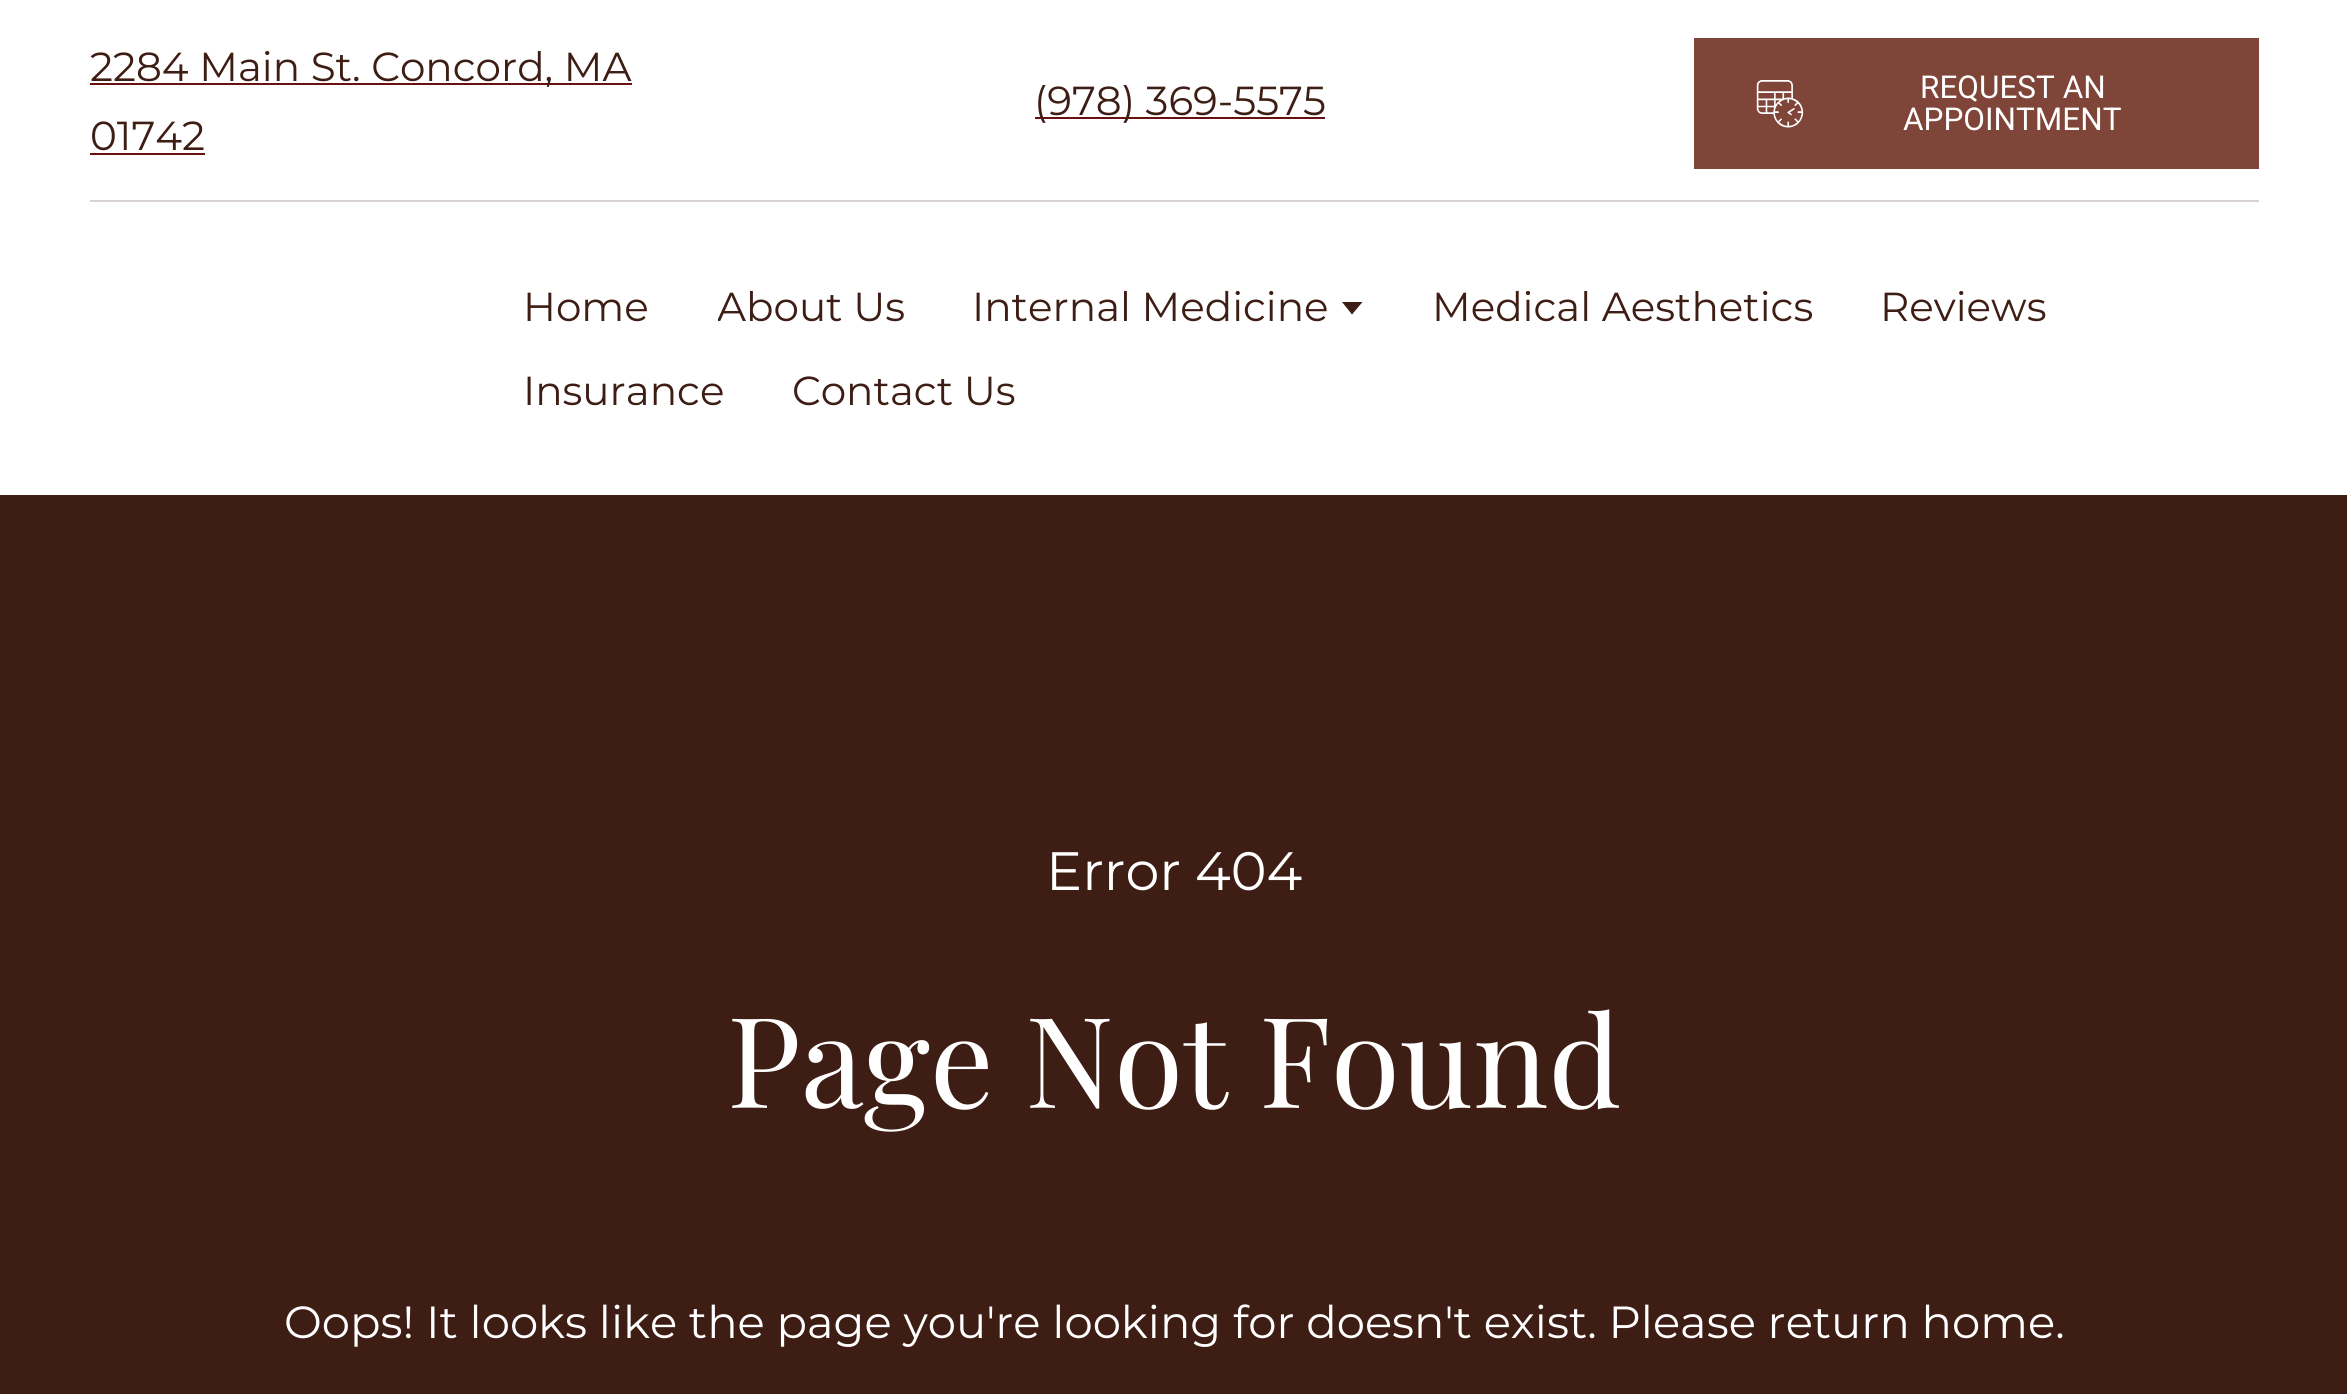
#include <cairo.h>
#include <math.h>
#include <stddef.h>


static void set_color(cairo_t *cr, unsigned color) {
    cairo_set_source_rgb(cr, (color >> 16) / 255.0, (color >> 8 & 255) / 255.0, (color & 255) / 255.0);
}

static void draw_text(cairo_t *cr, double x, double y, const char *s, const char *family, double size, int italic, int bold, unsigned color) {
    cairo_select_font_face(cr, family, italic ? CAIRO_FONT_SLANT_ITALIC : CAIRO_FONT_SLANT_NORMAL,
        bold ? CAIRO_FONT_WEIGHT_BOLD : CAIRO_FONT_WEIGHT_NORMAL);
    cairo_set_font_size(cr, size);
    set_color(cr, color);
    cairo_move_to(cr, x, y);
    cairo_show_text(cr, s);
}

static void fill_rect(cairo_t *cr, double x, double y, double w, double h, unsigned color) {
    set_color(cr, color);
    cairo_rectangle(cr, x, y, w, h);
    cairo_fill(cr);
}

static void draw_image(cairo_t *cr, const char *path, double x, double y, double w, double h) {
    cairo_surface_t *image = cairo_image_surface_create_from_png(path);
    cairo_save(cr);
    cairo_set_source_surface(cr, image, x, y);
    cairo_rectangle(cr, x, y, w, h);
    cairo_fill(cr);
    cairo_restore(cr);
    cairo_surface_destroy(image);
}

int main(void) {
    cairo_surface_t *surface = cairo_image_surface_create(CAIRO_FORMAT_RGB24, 2347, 1394);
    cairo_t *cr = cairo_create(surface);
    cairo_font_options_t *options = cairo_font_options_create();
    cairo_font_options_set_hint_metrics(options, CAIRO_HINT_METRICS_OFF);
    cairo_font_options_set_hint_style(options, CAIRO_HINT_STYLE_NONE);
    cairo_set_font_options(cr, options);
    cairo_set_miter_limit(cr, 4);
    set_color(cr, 0xFFFFFF);
    cairo_paint(cr);
    fill_rect(cr, 90, 83, 542, 2, 0x691013);
    draw_text(cr, 90, 81, "2284 Main St. Concord, MA", "Montserrat", 40.5, 0, 0, 0x3D1D14);
    draw_text(cr, 90, 150, "01742", "Montserrat", 40.5, 0, 0, 0x3D1D14);
    fill_rect(cr, 90, 153, 115, 2, 0x691013);
    fill_rect(cr, 1035, 117, 290, 2, 0x691013);
    draw_text(cr, 1034, 115, "(978) 369-5575", "Montserrat", 40.5, 0, 0, 0x3D1D14);
    fill_rect(cr, 1694, 38, 565, 131, 0x7E4538);
    draw_image(cr, "assets/img1.png", 1756, 80, 48, 48);
    draw_text(cr, 1920, 98, "REQUEST AN", "Roboto", 31.5, 0, 0, 0xFFFFFF);
    draw_text(cr, 1903, 130, "APPOINTMENT", "Roboto", 31.5, 0, 0, 0xFFFFFF);
    fill_rect(cr, 90, 200, 2169, 2, 0xD8D2D0);
    draw_text(cr, 523, 321, "Home", "Montserrat", 40.5, 0, 0, 0x3D1D14);
    cairo_save(cr);
    cairo_rectangle(cr, 718, 284, 187, 49);
    cairo_clip(cr);
    draw_text(cr, 717, 321, "About Us", "Montserrat", 40.5, 0, 0, 0x3D1D14);
    cairo_restore(cr);
    draw_text(cr, 972, 321, "Internal Medicine", "Montserrat", 40.5, 0, 0, 0x3D1D14);
    cairo_new_path(cr);
    cairo_move_to(cr, 1352, 314.5);
    cairo_line_to(cr, 1362.5, 302);
    cairo_line_to(cr, 1342, 302);
    cairo_close_path(cr);
    cairo_fill(cr);
    draw_text(cr, 1432, 321, "Medical Aesthetics", "Montserrat", 40.5, 0, 0, 0x3D1D14);
    draw_text(cr, 1880, 321, "Reviews", "Montserrat", 40.5, 0, 0, 0x3D1D14);
    draw_text(cr, 523, 405, "Insurance", "Montserrat", 40.5, 0, 0, 0x3D1D14);
    draw_text(cr, 792, 405, "Contact Us", "Montserrat", 40.5, 0, 0, 0x3D1D14);
    fill_rect(cr, 0, 495, 2347, 899, 0x3D1D14);
    draw_text(cr, 1046, 890, "Error 404", "Montserrat", 54, 0, 0, 0xFFFFFF);
    draw_text(cr, 727, 1108, "Page Not Found", "Playfair Display", 126, 0, 0, 0xFFFFFF);
    draw_text(cr, 284, 1338, "Oops! It looks like the page you're looking for doesn't exist. Please return home.", "Montserrat", 45, 0, 0, 0xFFFFFF);
    cairo_surface_write_to_png(surface, "output.png");
    cairo_font_options_destroy(options);
    cairo_destroy(cr);
    cairo_surface_destroy(surface);
    return 0;
}
